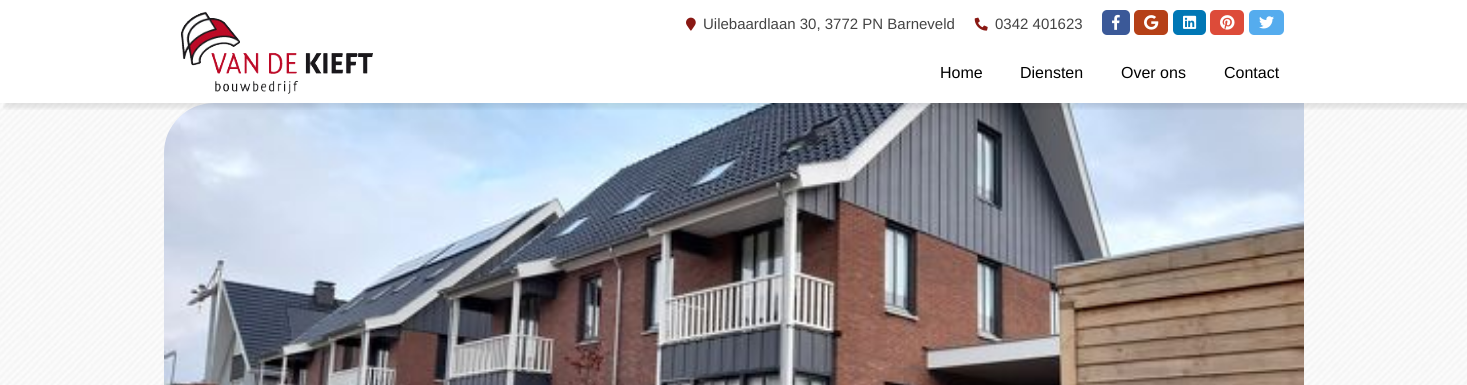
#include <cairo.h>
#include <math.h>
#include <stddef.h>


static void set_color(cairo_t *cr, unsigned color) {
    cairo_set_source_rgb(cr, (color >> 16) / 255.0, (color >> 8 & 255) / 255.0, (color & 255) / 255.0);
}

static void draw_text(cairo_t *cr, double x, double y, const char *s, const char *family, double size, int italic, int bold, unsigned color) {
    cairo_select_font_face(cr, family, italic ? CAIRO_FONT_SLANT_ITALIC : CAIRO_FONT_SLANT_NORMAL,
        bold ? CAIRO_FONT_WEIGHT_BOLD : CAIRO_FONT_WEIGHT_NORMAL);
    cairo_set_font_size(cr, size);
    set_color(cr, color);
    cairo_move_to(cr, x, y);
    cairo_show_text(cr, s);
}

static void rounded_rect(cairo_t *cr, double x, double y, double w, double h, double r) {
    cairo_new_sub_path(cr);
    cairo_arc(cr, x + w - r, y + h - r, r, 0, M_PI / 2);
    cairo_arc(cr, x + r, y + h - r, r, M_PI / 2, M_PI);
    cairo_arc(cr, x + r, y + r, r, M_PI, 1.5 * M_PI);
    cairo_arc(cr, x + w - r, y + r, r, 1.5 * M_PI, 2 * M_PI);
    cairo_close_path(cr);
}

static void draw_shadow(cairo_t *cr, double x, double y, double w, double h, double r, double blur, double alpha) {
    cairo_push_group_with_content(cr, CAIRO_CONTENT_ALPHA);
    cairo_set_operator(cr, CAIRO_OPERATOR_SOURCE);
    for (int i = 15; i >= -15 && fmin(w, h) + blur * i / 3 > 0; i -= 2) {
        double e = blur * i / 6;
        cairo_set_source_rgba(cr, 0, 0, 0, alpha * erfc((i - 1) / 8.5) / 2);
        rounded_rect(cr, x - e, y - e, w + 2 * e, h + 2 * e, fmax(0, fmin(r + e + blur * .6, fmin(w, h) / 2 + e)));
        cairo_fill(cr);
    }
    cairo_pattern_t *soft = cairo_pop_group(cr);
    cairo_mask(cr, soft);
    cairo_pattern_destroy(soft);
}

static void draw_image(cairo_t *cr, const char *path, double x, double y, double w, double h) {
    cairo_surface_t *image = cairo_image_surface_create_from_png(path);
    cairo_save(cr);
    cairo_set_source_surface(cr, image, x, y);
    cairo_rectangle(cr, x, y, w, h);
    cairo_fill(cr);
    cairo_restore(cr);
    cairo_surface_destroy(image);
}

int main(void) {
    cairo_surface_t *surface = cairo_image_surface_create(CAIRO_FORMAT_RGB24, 1467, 385);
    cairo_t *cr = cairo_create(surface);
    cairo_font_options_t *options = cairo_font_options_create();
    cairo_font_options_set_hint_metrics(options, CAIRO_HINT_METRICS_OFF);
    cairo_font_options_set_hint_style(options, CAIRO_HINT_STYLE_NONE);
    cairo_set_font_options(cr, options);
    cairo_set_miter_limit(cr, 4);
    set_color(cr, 0xFFFFFF);
    cairo_paint(cr);
    draw_image(cr, "assets/img9.png", 0, 103, 1467, 282);
    draw_image(cr, "assets/img10.png", 164, 103, 1140, 282);
    cairo_save(cr);
    cairo_rectangle(cr, 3, 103, 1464, 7);
    cairo_clip(cr);
    set_color(cr, 0x000000);
    draw_shadow(cr, 5, 5, 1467, 103, 0, 2.5, 0.1);
    cairo_restore(cr);
    draw_image(cr, "assets/img1.png", 181, 11, 192, 83);
    draw_image(cr, "assets/img2.png", 686, 17, 10, 14);
    draw_text(cr, 703, 29, "Uilebaardlaan 30, 3772 PN Barneveld", "Liberation Sans", 15, 0, 0, 0x444444);
    draw_image(cr, "assets/img3.png", 974, 17, 14, 14);
    draw_text(cr, 995, 29, "0342 401623", "Liberation Sans", 15, 0, 0, 0x444444);
    set_color(cr, 0x3B5998);
    rounded_rect(cr, 1102, 10, 28, 25, 5);
    cairo_fill(cr);
    draw_image(cr, "assets/img4.png", 1112, 14, 8, 16);
    set_color(cr, 0xB54017);
    rounded_rect(cr, 1134, 10, 34, 25, 5);
    cairo_fill(cr);
    draw_image(cr, "assets/img5.png", 1144, 15, 15, 15);
    set_color(cr, 0x0077B5);
    rounded_rect(cr, 1173, 10, 33, 25, 5);
    cairo_fill(cr);
    draw_image(cr, "assets/img6.png", 1183, 15, 14, 14);
    set_color(cr, 0xDD4B39);
    rounded_rect(cr, 1210, 10, 34, 25, 5);
    cairo_fill(cr);
    draw_image(cr, "assets/img7.png", 1220, 15, 15, 15);
    set_color(cr, 0x55ACEE);
    rounded_rect(cr, 1249, 10, 35, 25, 5);
    cairo_fill(cr);
    draw_image(cr, "assets/img8.png", 1259, 16, 15, 13);
    draw_text(cr, 940, 78, "Home", "Liberation Sans", 16, 0, 0, 0x000000);
    draw_text(cr, 1020, 78, "Diensten", "Liberation Sans", 16, 0, 0, 0x000000);
    draw_text(cr, 1121, 78, "Over ons", "Liberation Sans", 16, 0, 0, 0x000000);
    draw_text(cr, 1224, 78, "Contact", "Liberation Sans", 16, 0, 0, 0x000000);
    cairo_surface_write_to_png(surface, "output.png");
    cairo_font_options_destroy(options);
    cairo_destroy(cr);
    cairo_surface_destroy(surface);
    return 0;
}
